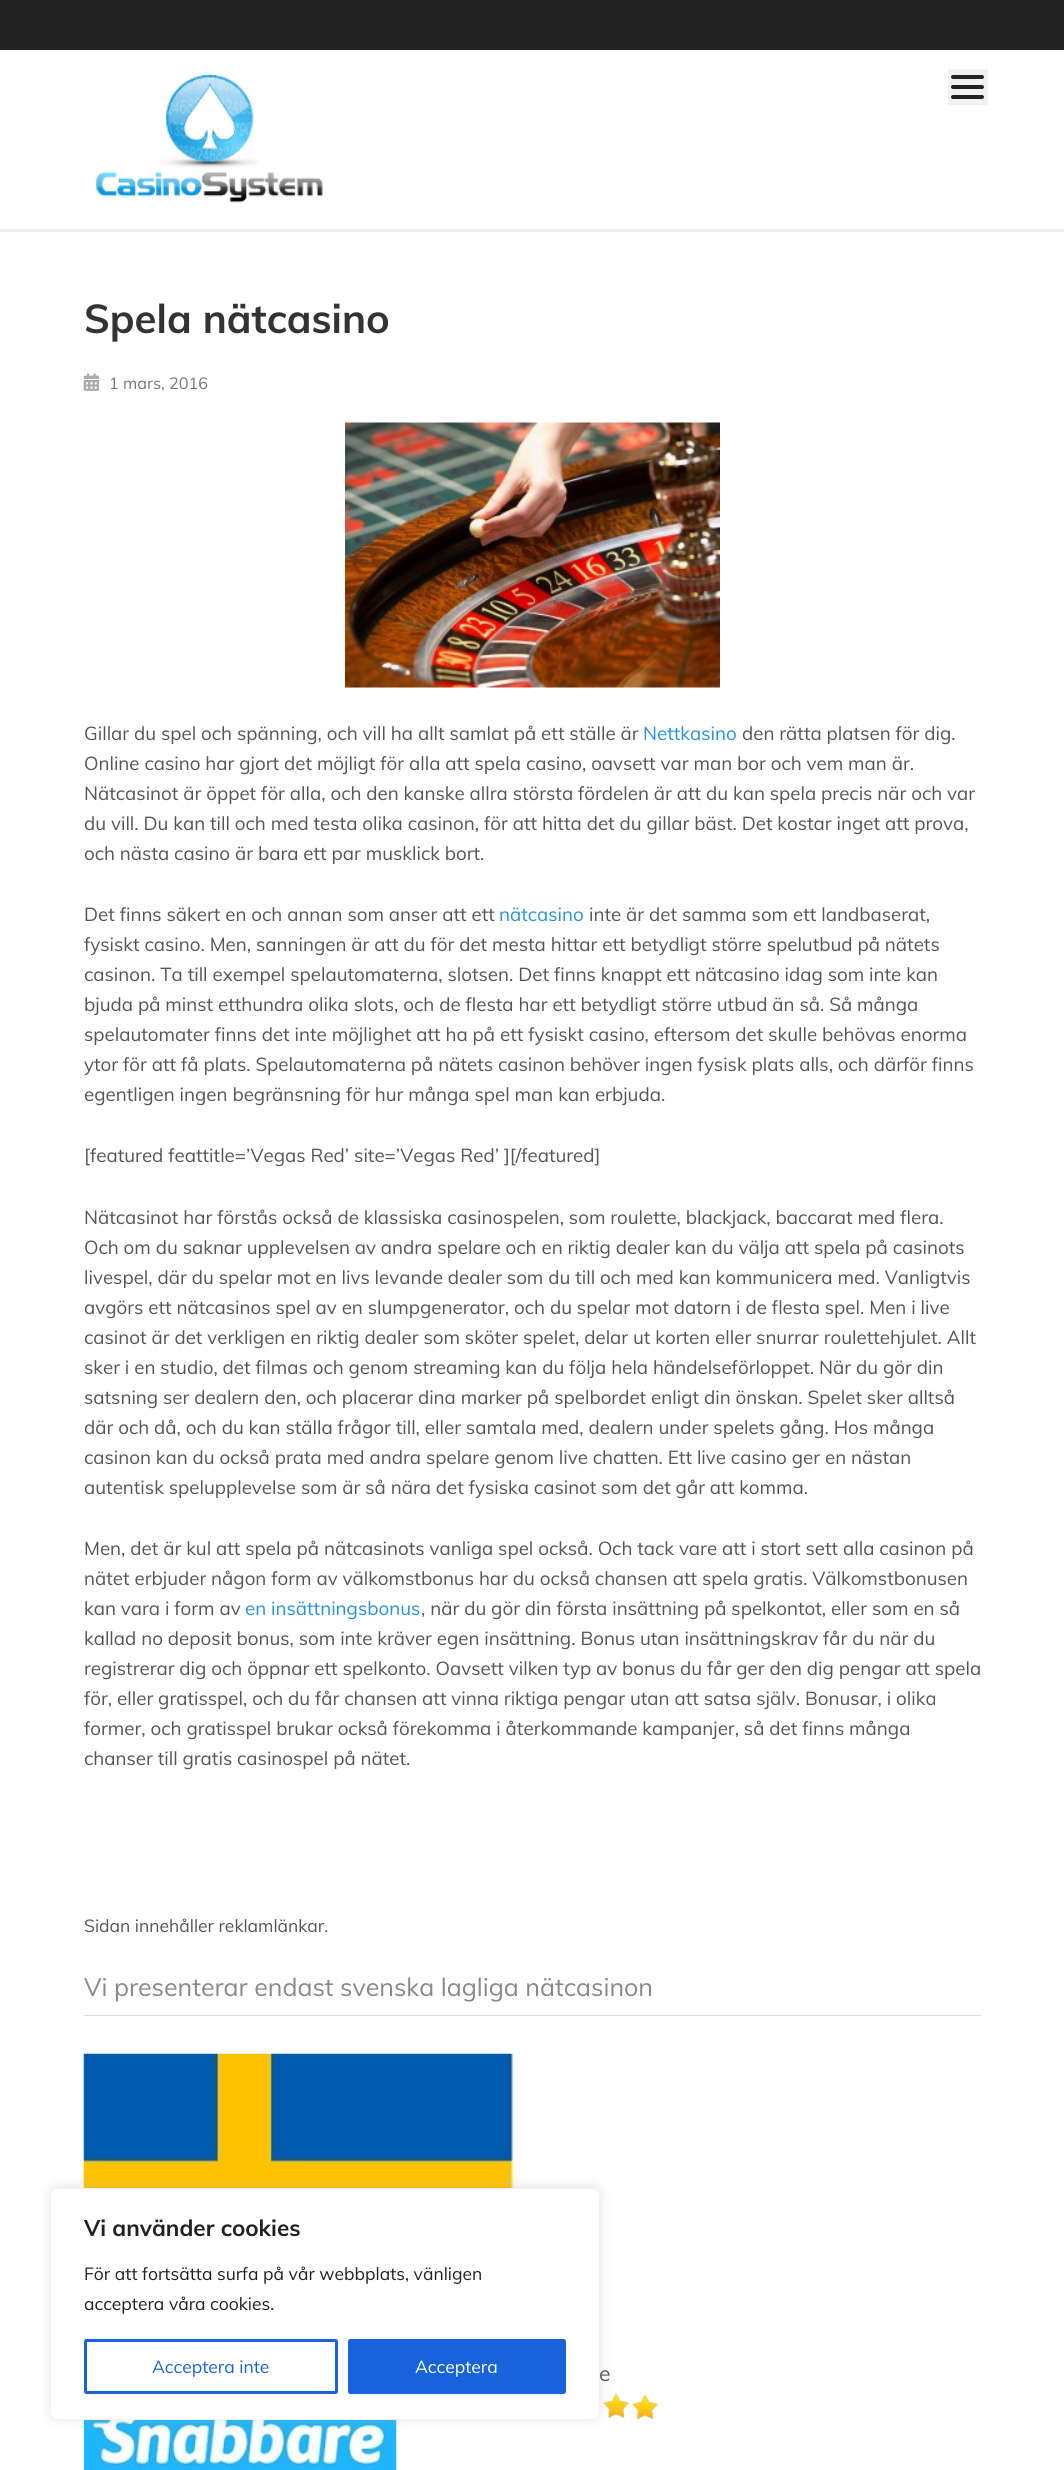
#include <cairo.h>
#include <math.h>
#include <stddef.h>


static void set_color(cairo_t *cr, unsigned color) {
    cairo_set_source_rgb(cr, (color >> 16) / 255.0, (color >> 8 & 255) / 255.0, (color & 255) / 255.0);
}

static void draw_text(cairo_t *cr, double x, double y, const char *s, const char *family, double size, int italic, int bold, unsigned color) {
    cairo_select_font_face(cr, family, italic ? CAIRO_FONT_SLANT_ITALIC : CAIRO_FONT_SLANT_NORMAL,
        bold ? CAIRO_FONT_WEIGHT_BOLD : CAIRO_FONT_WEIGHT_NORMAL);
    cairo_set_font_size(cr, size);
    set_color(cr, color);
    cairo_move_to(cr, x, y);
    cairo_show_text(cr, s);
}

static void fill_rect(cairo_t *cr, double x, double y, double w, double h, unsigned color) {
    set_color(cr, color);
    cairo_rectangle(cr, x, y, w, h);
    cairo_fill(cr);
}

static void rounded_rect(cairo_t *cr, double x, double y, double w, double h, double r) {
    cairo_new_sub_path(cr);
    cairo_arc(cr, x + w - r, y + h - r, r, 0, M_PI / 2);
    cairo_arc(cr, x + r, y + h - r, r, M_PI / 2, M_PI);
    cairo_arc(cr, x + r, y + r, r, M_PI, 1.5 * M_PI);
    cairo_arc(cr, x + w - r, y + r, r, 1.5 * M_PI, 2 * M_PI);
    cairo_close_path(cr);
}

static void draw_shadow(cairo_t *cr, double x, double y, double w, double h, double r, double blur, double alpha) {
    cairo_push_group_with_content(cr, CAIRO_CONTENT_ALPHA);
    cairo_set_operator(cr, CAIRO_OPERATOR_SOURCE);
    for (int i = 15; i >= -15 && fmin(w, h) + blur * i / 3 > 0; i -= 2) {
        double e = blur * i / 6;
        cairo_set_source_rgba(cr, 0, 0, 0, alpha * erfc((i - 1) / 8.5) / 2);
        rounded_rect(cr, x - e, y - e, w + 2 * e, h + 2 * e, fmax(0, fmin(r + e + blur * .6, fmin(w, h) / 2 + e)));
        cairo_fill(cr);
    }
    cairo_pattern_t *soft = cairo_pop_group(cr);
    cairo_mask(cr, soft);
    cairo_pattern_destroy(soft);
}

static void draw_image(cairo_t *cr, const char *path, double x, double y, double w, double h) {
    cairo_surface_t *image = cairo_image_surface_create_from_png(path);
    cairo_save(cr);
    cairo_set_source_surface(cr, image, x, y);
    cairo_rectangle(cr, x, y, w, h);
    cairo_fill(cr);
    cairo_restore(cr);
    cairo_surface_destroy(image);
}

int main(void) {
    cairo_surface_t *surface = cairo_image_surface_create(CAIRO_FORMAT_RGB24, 1064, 2470);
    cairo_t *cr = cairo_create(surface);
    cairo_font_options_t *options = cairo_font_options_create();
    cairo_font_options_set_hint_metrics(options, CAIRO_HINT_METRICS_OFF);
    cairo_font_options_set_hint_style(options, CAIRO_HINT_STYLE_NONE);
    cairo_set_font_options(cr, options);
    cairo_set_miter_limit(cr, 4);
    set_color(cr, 0xFFFFFF);
    cairo_paint(cr);
    fill_rect(cr, 0, 0, 1064, 50, 0x222222);
    fill_rect(cr, 0, 229, 1064, 3, 0xEEEEEE);
    draw_image(cr, "assets/img1.png", 95, 73, 228, 130);
    fill_rect(cr, 948, 69, 40, 36, 0xF1F1F1);
    set_color(cr, 0x222222);
    rounded_rect(cr, 951, 75, 33, 4, 2);
    cairo_fill(cr);
    rounded_rect(cr, 951, 85, 33, 4, 2);
    cairo_fill(cr);
    rounded_rect(cr, 951, 95, 33, 4, 2);
    cairo_fill(cr);
    draw_text(cr, 84, 333, "Spela nätcasino", "Muli", 40, 0, 1, 0x333333);
    draw_image(cr, "assets/img2.png", 83, 373, 17, 18);
    draw_text(cr, 109, 389, "1 mars, 2016", "Muli", 16.25, 0, 0, 0x777777);
    draw_image(cr, "assets/img3.png", 345, 422, 375, 266);
    draw_text(cr, 84, 740, "Gillar du spel och spänning, och vill ha allt samlat på ett ställe är", "Muli", 18.75, 0, 0, 0x555555);
    draw_text(cr, 643, 740, "Nettkasino", "Muli", 18.75, 0, 0, 0x2492E0);
    draw_text(cr, 742, 740, "den rätta platsen för dig.", "Muli", 18.75, 0, 0, 0x555555);
    draw_text(cr, 84, 770, "Online casino har gjort det möjligt för alla att spela casino, oavsett var man bor och vem man är.", "Muli", 18.75, 0, 0, 0x555555);
    draw_text(cr, 84, 800, "Nätcasinot är öppet för alla, och den kanske allra största fördelen är att du kan spela precis när och var", "Muli", 18.75, 0, 0, 0x555555);
    draw_text(cr, 84, 830, "du vill. Du kan till och med testa olika casinon, för att hitta det du gillar bäst. Det kostar inget att prova,", "Muli", 18.75, 0, 0, 0x555555);
    draw_text(cr, 84, 860, "och nästa casino är bara ett par musklick bort.", "Muli", 18.75, 0, 0, 0x555555);
    draw_text(cr, 84, 921, "Det finns säkert en och annan som anser att ett", "Muli", 18.75, 0, 0, 0x555555);
    draw_text(cr, 499, 921, "nätcasino", "Muli", 18.75, 0, 0, 0x2492E0);
    draw_text(cr, 589, 921, "inte är det samma som ett landbaserat,", "Muli", 18.75, 0, 0, 0x555555);
    draw_text(cr, 84, 951, "fysiskt casino. Men, sanningen är att du för det mesta hittar ett betydligt större spelutbud på nätets", "Muli", 18.75, 0, 0, 0x555555);
    draw_text(cr, 84, 981, "casinon. Ta till exempel spelautomaterna, slotsen. Det finns knappt ett nätcasino idag som inte kan", "Muli", 18.75, 0, 0, 0x555555);
    draw_text(cr, 84, 1011, "bjuda på minst etthundra olika slots, och de flesta har ett betydligt större utbud än så. Så många", "Muli", 18.75, 0, 0, 0x555555);
    draw_text(cr, 84, 1041, "spelautomater finns det inte möjlighet att ha på ett fysiskt casino, eftersom det skulle behövas enorma", "Muli", 18.75, 0, 0, 0x555555);
    draw_text(cr, 84, 1071, "ytor för att få plats. Spelautomaterna på nätets casinon behöver ingen fysisk plats alls, och därför finns", "Muli", 18.75, 0, 0, 0x555555);
    draw_text(cr, 84, 1101, "egentligen ingen begränsning för hur många spel man kan erbjuda.", "Muli", 18.75, 0, 0, 0x555555);
    draw_text(cr, 84, 1162, "[featured feattitle=’Vegas Red’ site=’Vegas Red’ ][/featured]", "Muli", 18.75, 0, 0, 0x555555);
    draw_text(cr, 84, 1224, "Nätcasinot har förstås också de klassiska casinospelen, som roulette, blackjack, baccarat med flera.", "Muli", 18.75, 0, 0, 0x555555);
    draw_text(cr, 84, 1254, "Och om du saknar upplevelsen av andra spelare och en riktig dealer kan du välja att spela på casinots", "Muli", 18.75, 0, 0, 0x555555);
    draw_text(cr, 84, 1284, "livespel, där du spelar mot en livs levande dealer som du till och med kan kommunicera med. Vanligtvis", "Muli", 18.75, 0, 0, 0x555555);
    draw_text(cr, 84, 1314, "avgörs ett nätcasinos spel av en slumpgenerator, och du spelar mot datorn i de flesta spel. Men i live", "Muli", 18.75, 0, 0, 0x555555);
    draw_text(cr, 84, 1344, "casinot är det verkligen en riktig dealer som sköter spelet, delar ut korten eller snurrar roulettehjulet. Allt", "Muli", 18.75, 0, 0, 0x555555);
    draw_text(cr, 84, 1374, "sker i en studio, det filmas och genom streaming kan du följa hela händelseförloppet. När du gör din", "Muli", 18.75, 0, 0, 0x555555);
    draw_text(cr, 84, 1404, "satsning ser dealern den, och placerar dina marker på spelbordet enligt din önskan. Spelet sker alltså", "Muli", 18.75, 0, 0, 0x555555);
    draw_text(cr, 84, 1434, "där och då, och du kan ställa frågor till, eller samtala med, dealern under spelets gång. Hos många", "Muli", 18.75, 0, 0, 0x555555);
    draw_text(cr, 84, 1464, "casinon kan du också prata med andra spelare genom live chatten. Ett live casino ger en nästan", "Muli", 18.75, 0, 0, 0x555555);
    draw_text(cr, 84, 1494, "autentisk spelupplevelse som är så nära det fysiska casinot som det går att komma.", "Muli", 18.75, 0, 0, 0x555555);
    draw_text(cr, 84, 1555, "Men, det är kul att spela på nätcasinots vanliga spel också. Och tack vare att i stort sett alla casinon på", "Muli", 18.75, 0, 0, 0x555555);
    draw_text(cr, 84, 1585, "nätet erbjuder någon form av välkomstbonus har du också chansen att spela gratis. Välkomstbonusen", "Muli", 18.75, 0, 0, 0x555555);
    draw_text(cr, 84, 1615, "kan vara i form av", "Muli", 18.75, 0, 0, 0x555555);
    draw_text(cr, 245, 1615, "en insättningsbonus", "Muli", 18.75, 0, 0, 0x2492E0);
    draw_text(cr, 421, 1615, ", när du gör din första insättning på spelkontot, eller som en så", "Muli", 18.75, 0, 0, 0x555555);
    draw_text(cr, 84, 1645, "kallad no deposit bonus, som inte kräver egen insättning. Bonus utan insättningskrav får du när du", "Muli", 18.75, 0, 0, 0x555555);
    draw_text(cr, 84, 1675, "registrerar dig och öppnar ett spelkonto. Oavsett vilken typ av bonus du får ger den dig pengar att spela", "Muli", 18.75, 0, 0, 0x555555);
    draw_text(cr, 84, 1705, "för, eller gratisspel, och du får chansen att vinna riktiga pengar utan att satsa själv. Bonusar, i olika", "Muli", 18.75, 0, 0, 0x555555);
    draw_text(cr, 84, 1735, "former, och gratisspel brukar också förekomma i återkommande kampanjer, så det finns många", "Muli", 18.75, 0, 0, 0x555555);
    draw_text(cr, 84, 1765, "chanser till gratis casinospel på nätet.", "Muli", 18.75, 0, 0, 0x555555);
    draw_text(cr, 84, 1932, "Sidan innehåller reklamlänkar.", "Muli", 17.5, 0, 0, 0x555555);
    fill_rect(cr, 84, 2015, 897, 1, 0xDDDDDD);
    draw_text(cr, 84, 1996, "Vi presenterar endast svenska lagliga nätcasinon", "Muli", 25, 0, 0, 0x888888);
    draw_image(cr, "assets/img4.png", 83, 2053, 431, 135);
    draw_text(cr, 599, 2381, "e", "Muli", 21, 0, 0, 0x555555);
    draw_image(cr, "assets/img5.png", 603, 2393, 55, 26);
    draw_image(cr, "assets/img6.png", 603, 2393, 55, 26);
    draw_image(cr, "assets/img7.png", 83, 2420, 314, 50);
    set_color(cr, 0xACABAB);
    draw_shadow(cr, 50, 2186, 550, 233, 8, 6, 0.3);
    set_color(cr, 0xFFFFFF);
    rounded_rect(cr, 50.5, 2188.5, 549, 231, 7.5);
    cairo_fill_preserve(cr);
    set_color(cr, 0xF4F4F4);
    cairo_set_line_width(cr, 1);
    cairo_stroke(cr);
    draw_text(cr, 84, 2236, "Vi använder cookies", "Muli", 22.5, 0, 1, 0x212121);
    draw_text(cr, 84, 2280, "För att fortsätta surfa på vår webbplats, vänligen", "Muli", 17.5, 0, 0, 0x212121);
    draw_text(cr, 84, 2310, "acceptera våra cookies.", "Muli", 17.5, 0, 0, 0x212121);
    rounded_rect(cr, 85.5, 2340.5, 251, 52, 1);
    set_color(cr, 0x1863DC);
    cairo_set_line_width(cr, 3);
    cairo_stroke(cr);
    draw_text(cr, 152, 2373, "Acceptera inte", "Muli", 17.5, 0, 0, 0x1863DC);
    rounded_rect(cr, 349.5, 2340.5, 215, 52, 1);
    cairo_fill_preserve(cr);
    cairo_stroke(cr);
    draw_text(cr, 415, 2373, "Acceptera", "Muli", 17.5, 0, 0, 0xFFFFFF);
    cairo_surface_write_to_png(surface, "output.png");
    cairo_font_options_destroy(options);
    cairo_destroy(cr);
    cairo_surface_destroy(surface);
    return 0;
}
